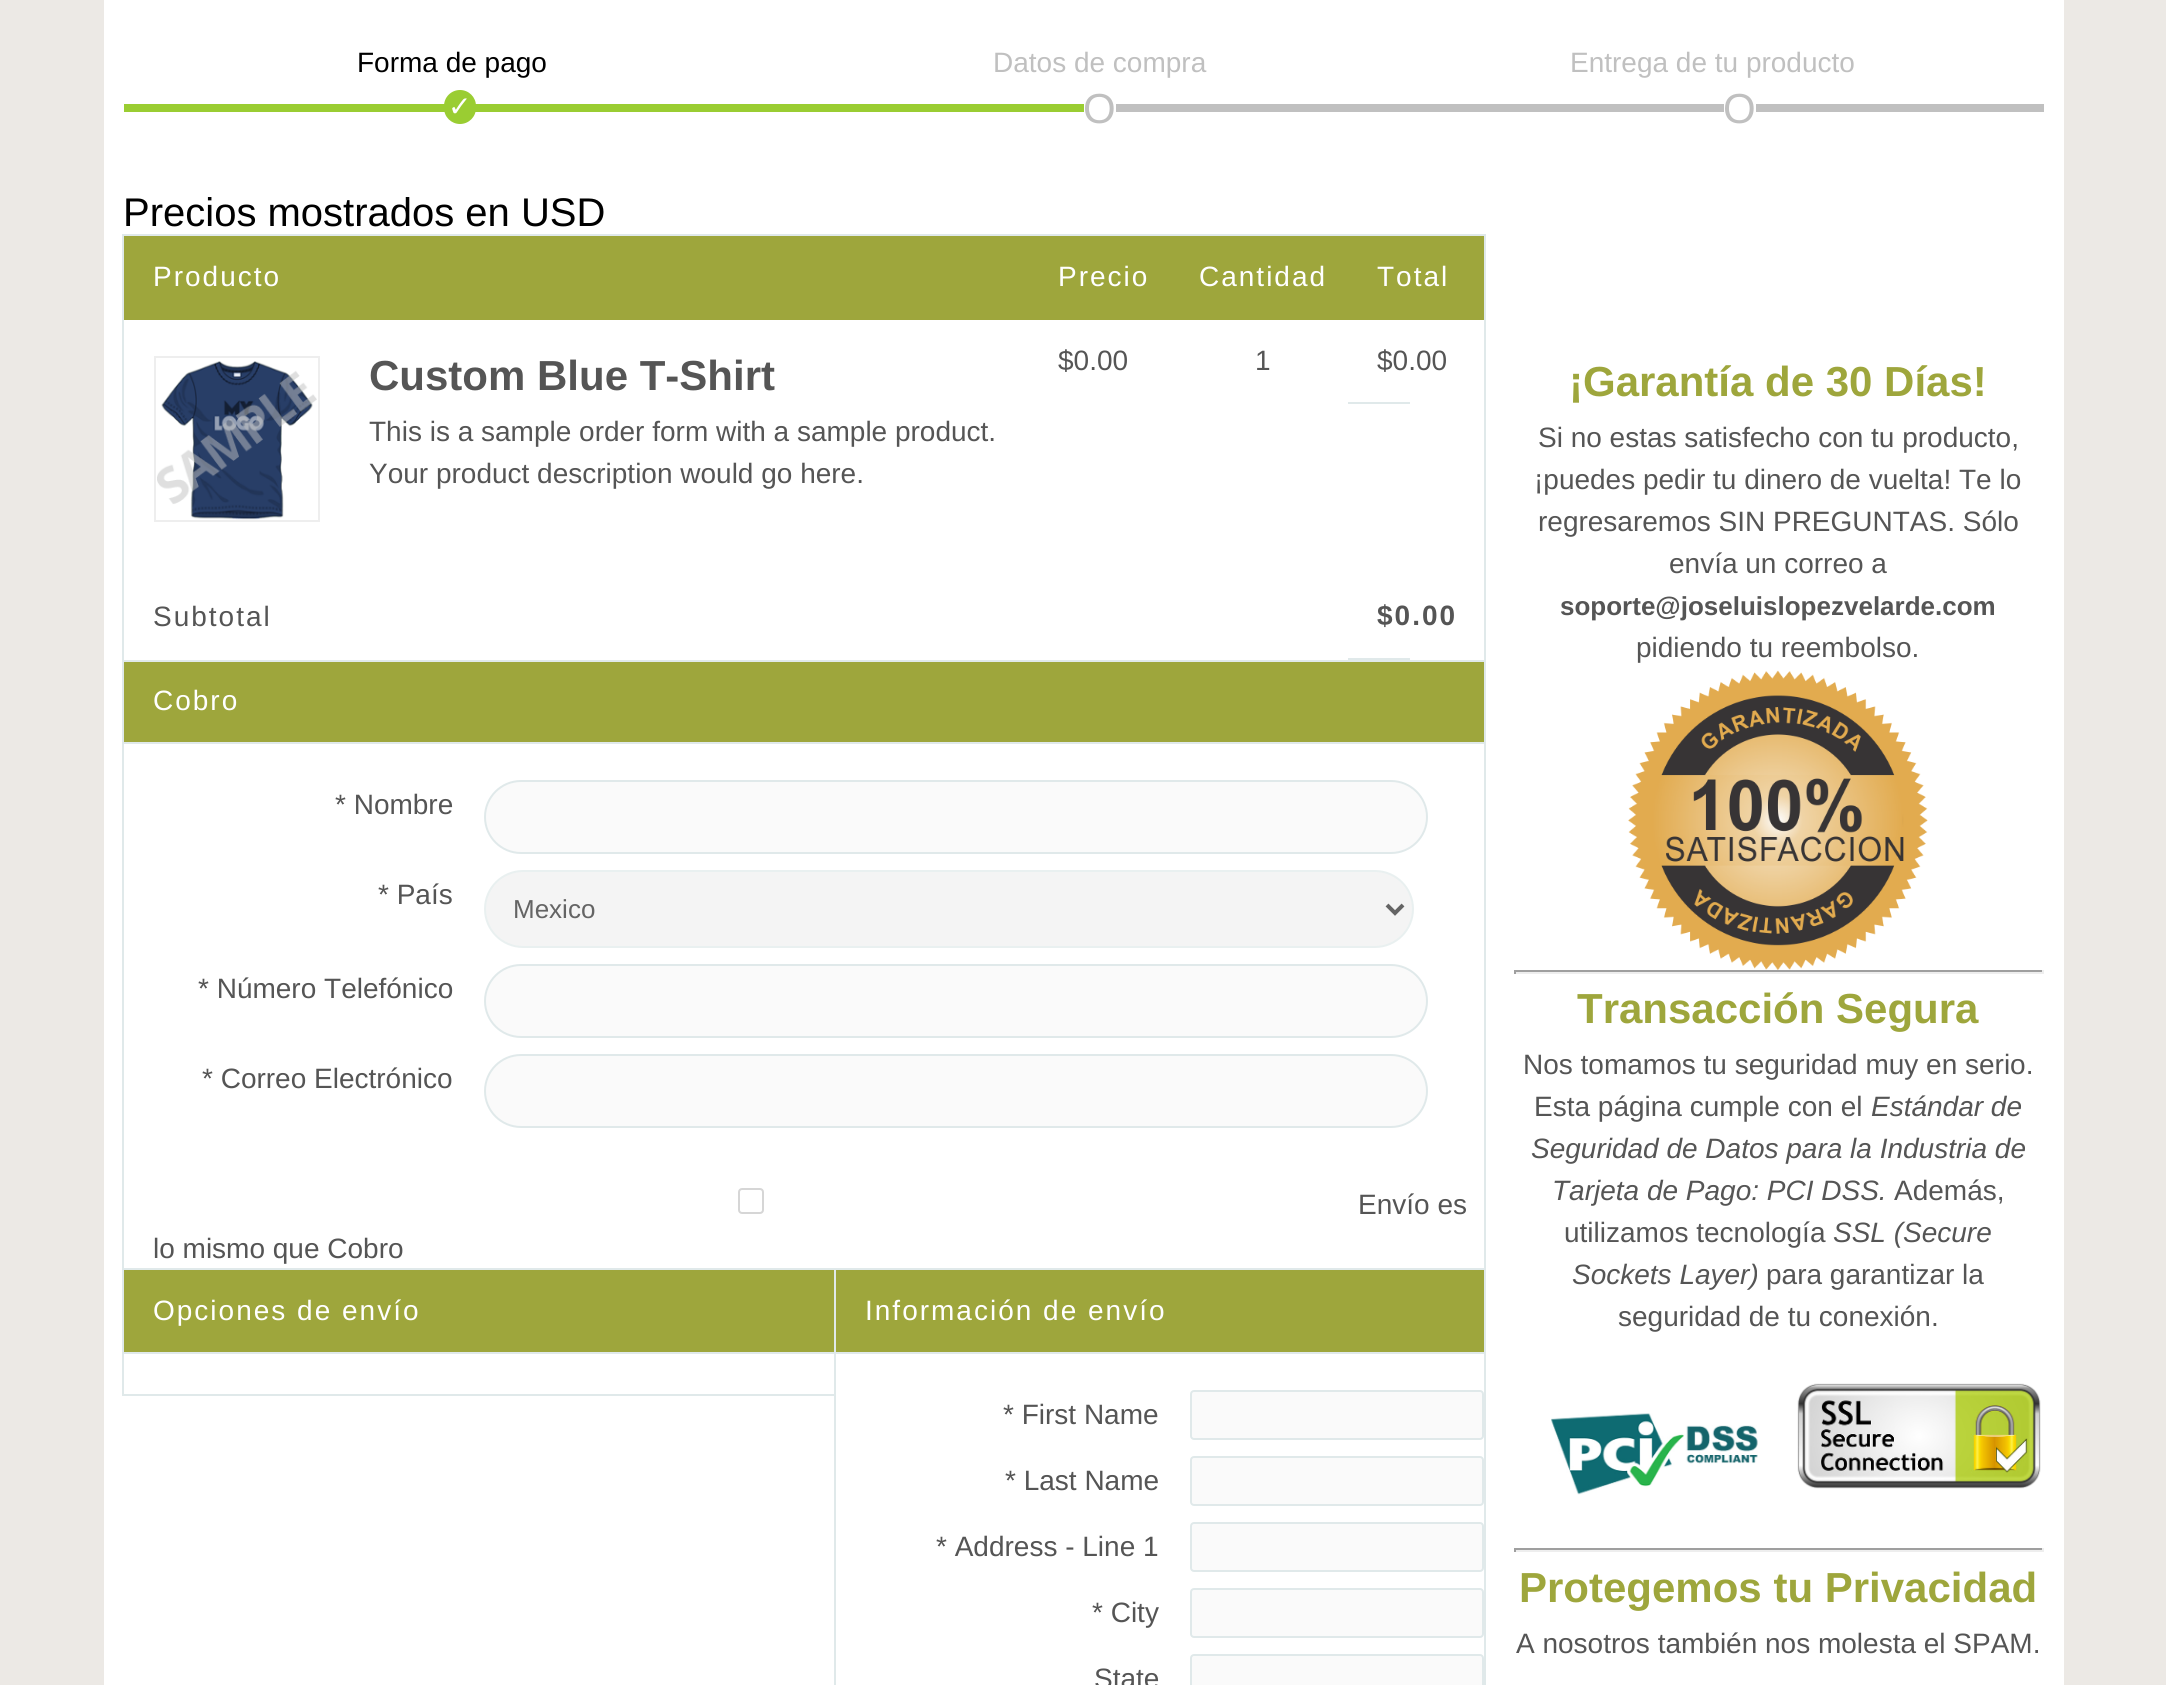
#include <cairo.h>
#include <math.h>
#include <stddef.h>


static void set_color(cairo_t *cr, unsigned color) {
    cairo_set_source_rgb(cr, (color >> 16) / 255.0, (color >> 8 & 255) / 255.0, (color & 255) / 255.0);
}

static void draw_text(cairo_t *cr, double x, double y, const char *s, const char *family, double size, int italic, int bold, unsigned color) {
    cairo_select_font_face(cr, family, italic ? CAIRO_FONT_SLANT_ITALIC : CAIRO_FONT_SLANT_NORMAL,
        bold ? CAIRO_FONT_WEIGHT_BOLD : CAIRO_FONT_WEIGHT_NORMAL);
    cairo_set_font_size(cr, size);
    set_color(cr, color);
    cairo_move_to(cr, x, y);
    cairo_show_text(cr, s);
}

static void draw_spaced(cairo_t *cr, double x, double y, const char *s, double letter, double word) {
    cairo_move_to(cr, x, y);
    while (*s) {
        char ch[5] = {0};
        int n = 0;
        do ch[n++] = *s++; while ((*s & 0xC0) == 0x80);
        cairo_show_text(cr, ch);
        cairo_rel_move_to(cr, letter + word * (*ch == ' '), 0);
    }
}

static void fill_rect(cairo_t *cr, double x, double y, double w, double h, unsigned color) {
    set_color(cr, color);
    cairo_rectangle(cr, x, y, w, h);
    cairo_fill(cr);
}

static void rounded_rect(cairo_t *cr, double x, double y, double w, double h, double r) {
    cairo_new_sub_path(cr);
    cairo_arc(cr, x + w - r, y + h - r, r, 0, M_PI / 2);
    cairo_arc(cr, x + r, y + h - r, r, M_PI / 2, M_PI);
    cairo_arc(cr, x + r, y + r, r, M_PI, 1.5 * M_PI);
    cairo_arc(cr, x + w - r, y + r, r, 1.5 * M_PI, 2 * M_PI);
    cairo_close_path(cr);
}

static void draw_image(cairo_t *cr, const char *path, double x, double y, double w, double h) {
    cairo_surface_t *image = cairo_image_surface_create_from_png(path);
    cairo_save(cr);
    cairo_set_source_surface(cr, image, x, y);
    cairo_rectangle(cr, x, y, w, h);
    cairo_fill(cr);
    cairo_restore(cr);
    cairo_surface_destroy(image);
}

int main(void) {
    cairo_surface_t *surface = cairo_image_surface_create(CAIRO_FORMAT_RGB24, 2166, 1685);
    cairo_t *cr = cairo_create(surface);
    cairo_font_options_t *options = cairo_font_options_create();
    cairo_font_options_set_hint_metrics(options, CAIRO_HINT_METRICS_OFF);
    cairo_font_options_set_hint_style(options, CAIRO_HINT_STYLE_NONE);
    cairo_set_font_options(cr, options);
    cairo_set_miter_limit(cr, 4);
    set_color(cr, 0xECE9E5);
    cairo_paint(cr);
    fill_rect(cr, 104, 0, 1960, 1685, 0xFFFFFF);
    fill_rect(cr, 124, 104, 960, 8, 0x9ACD32);
    draw_text(cr, 357, 72, "Forma de pago", "Liberation Sans", 28, 0, 0, 0x000000);
    set_color(cr, 0x9ACD32);
    rounded_rect(cr, 444, 90, 32, 34, 16);
    cairo_fill(cr);
    draw_text(cr, 448, 116, "✓", "DejaVu Sans", 28, 0, 0, 0xFFFFFF);
    draw_text(cr, 993, 72, "Datos de compra", "Liberation Sans", 28, 0, 0, 0xC0C0C0);
    draw_text(cr, 1083, 123, "Ο", "Liberation Sans", 42, 0, 0, 0xC0C0C0);
    fill_rect(cr, 1116, 104, 928, 8, 0xC0C0C0);
    draw_text(cr, 1570, 72, "Entrega de tu producto", "Liberation Sans", 28, 0, 0, 0xC0C0C0);
    fill_rect(cr, 1724, 104, 32, 8, 0xFFFFFF);
    draw_text(cr, 1723, 123, "Ο", "Liberation Sans", 42, 0, 0, 0xC0C0C0);
    draw_text(cr, 123, 226, "Precios mostrados en USD", "Liberation Sans", 40, 0, 0, 0x000000);
    fill_rect(cr, 124, 236, 1360, 84, 0x9EA63C);
    cairo_rectangle(cr, 155, 357, 164, 164);
    set_color(cr, 0xEEEEEE);
    cairo_stroke(cr);
    draw_image(cr, "assets/img1.png", 157, 361, 160, 159);
    fill_rect(cr, 1348, 402, 62, 2, 0xE0E9EA);
    fill_rect(cr, 124, 662, 1360, 80, 0x9EA63C);
    fill_rect(cr, 122, 742, 1362, 2, 0xE0E9EA);
    set_color(cr, 0xFAFAFA);
    rounded_rect(cr, 485, 781, 942, 72, 36);
    cairo_fill_preserve(cr);
    set_color(cr, 0xE0E9EA);
    cairo_stroke(cr);
    set_color(cr, 0xFAFAFA);
    rounded_rect(cr, 485, 965, 942, 72, 36);
    cairo_fill_preserve(cr);
    set_color(cr, 0xE0E9EA);
    cairo_stroke(cr);
    set_color(cr, 0xFAFAFA);
    rounded_rect(cr, 485, 1055, 942, 72, 36);
    cairo_fill_preserve(cr);
    set_color(cr, 0xE0E9EA);
    cairo_stroke(cr);
    rounded_rect(cr, 739, 1189, 24, 24, 3);
    set_color(cr, 0xD6D6D6);
    cairo_stroke(cr);
    cairo_rectangle(cr, 123, 659, 1362, 612);
    set_color(cr, 0xE0E9EA);
    cairo_stroke(cr);
    fill_rect(cr, 124, 658, 1360, 2, 0xFFFFFF);
    fill_rect(cr, 1348, 658, 62, 2, 0xE0E9EA);
    cairo_rectangle(cr, 123, 235, 1362, 426);
    cairo_stroke(cr);
    cairo_set_font_size(cr, 28);
    set_color(cr, 0xFFFFFF);
    draw_spaced(cr, 153, 286, "Producto", 2, 0);
    draw_spaced(cr, 1058, 286, "Precio", 2, 0);
    draw_spaced(cr, 1199, 286, "Cantidad", 2, 0);
    draw_spaced(cr, 1377, 286, "Total", 2, 0);
    draw_text(cr, 369, 390, "Custom Blue T-Shirt", "Liberation Sans", 42, 0, 1, 0x555555);
    draw_text(cr, 369, 441, "This is a sample order form with a sample product.", "Liberation Sans", 28, 0, 0, 0x555555);
    draw_text(cr, 369, 483, "Your product description would go here.", "Liberation Sans", 28, 0, 0, 0x555555);
    draw_text(cr, 1058, 370, "$0.00", "Liberation Sans", 28, 0, 0, 0x555555);
    draw_text(cr, 1255, 370, "1", "Liberation Sans", 28, 0, 0, 0x555555);
    draw_text(cr, 1377, 370, "$0.00", "Liberation Sans", 28, 0, 0, 0x555555);
    draw_spaced(cr, 153, 626, "Subtotal", 2, 0);
    cairo_select_font_face(cr, "Liberation Sans", CAIRO_FONT_SLANT_NORMAL, CAIRO_FONT_WEIGHT_BOLD);
    draw_spaced(cr, 1377, 625, "$0.00", 2, 0);
    cairo_select_font_face(cr, "Liberation Sans", CAIRO_FONT_SLANT_NORMAL, CAIRO_FONT_WEIGHT_NORMAL);
    set_color(cr, 0xFFFFFF);
    draw_spaced(cr, 153, 710, "Cobro", 2, 0);
    draw_text(cr, 335, 814, "* Nombre", "Liberation Sans", 28, 0, 0, 0x555555);
    draw_text(cr, 378, 904, "* País", "Liberation Sans", 28, 0, 0, 0x555555);
    set_color(cr, 0xF4F4F4);
    rounded_rect(cr, 485, 871, 928, 76, 38);
    cairo_fill_preserve(cr);
    set_color(cr, 0xE9F0F0);
    cairo_stroke(cr);
    cairo_new_path(cr);
    cairo_move_to(cr, 1387, 905);
    cairo_line_to(cr, 1395, 913);
    cairo_line_to(cr, 1403, 905);
    set_color(cr, 0x646464);
    cairo_set_line_width(cr, 4);
    cairo_stroke(cr);
    draw_text(cr, 513, 918, "Mexico", "Liberation Sans", 26, 0, 0, 0x646464);
    draw_text(cr, 198, 998, "* Número Telefónico", "Liberation Sans", 28, 0, 0, 0x555555);
    draw_text(cr, 202, 1088, "* Correo Electrónico", "Liberation Sans", 28, 0, 0, 0x555555);
    draw_text(cr, 1358, 1214, "Envío es", "Liberation Sans", 28, 0, 0, 0x555555);
    draw_text(cr, 153, 1258, "lo mismo que Cobro", "Liberation Sans", 28, 0, 0, 0x555555);
    fill_rect(cr, 124, 1270, 710, 82, 0x9EA63C);
    fill_rect(cr, 836, 1270, 648, 82, 0x9EA63C);
    fill_rect(cr, 122, 1352, 1362, 2, 0xE0E9EA);
    set_color(cr, 0xFAFAFA);
    rounded_rect(cr, 1191, 1391, 292, 48, 3);
    cairo_fill_preserve(cr);
    set_color(cr, 0xE0E9EA);
    cairo_set_line_width(cr, 2);
    cairo_stroke(cr);
    set_color(cr, 0xFAFAFA);
    rounded_rect(cr, 1191, 1457, 292, 48, 3);
    cairo_fill_preserve(cr);
    set_color(cr, 0xE0E9EA);
    cairo_stroke(cr);
    set_color(cr, 0xFAFAFA);
    rounded_rect(cr, 1191, 1523, 292, 48, 3);
    cairo_fill_preserve(cr);
    set_color(cr, 0xE0E9EA);
    cairo_stroke(cr);
    set_color(cr, 0xFAFAFA);
    rounded_rect(cr, 1191, 1589, 292, 48, 3);
    cairo_fill_preserve(cr);
    set_color(cr, 0xE0E9EA);
    cairo_stroke(cr);
    set_color(cr, 0xFAFAFA);
    rounded_rect(cr, 1191, 1655, 292, 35, 3);
    cairo_fill_preserve(cr);
    set_color(cr, 0xE0E9EA);
    cairo_stroke(cr);
    cairo_rectangle(cr, 835, 1269, 650, 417);
    cairo_stroke(cr);
    cairo_rectangle(cr, 123, 1269, 712, 126);
    cairo_stroke(cr);
    set_color(cr, 0xFFFFFF);
    draw_spaced(cr, 153, 1320, "Opciones de envío", 2, 0);
    draw_spaced(cr, 865, 1320, "Información de envío", 2, 0);
    draw_text(cr, 1003, 1424, "* First Name", "Liberation Sans", 28, 0, 0, 0x555555);
    draw_text(cr, 1005, 1490, "* Last Name", "Liberation Sans", 28, 0, 0, 0x555555);
    draw_text(cr, 936, 1556, "* Address - Line 1", "Liberation Sans", 28, 0, 0, 0x555555);
    draw_text(cr, 1092, 1622, "* City", "Liberation Sans", 28, 0, 0, 0x555555);
    draw_text(cr, 1094, 1688, "State", "Liberation Sans", 28, 0, 0, 0x555555);
    draw_text(cr, 1569, 396, "¡Garantía de 30 Días!", "Liberation Sans", 42, 0, 1, 0x9EA63C);
    draw_text(cr, 1538, 447, "Si no estas satisfecho con tu producto,", "Liberation Sans", 28, 0, 0, 0x555555);
    draw_text(cr, 1534, 489, "¡puedes pedir tu dinero de vuelta! Te lo", "Liberation Sans", 28, 0, 0, 0x555555);
    draw_text(cr, 1538, 531, "regresaremos SIN PREGUNTAS. Sólo", "Liberation Sans", 28, 0, 0, 0x555555);
    draw_text(cr, 1669, 573, "envía un correo a", "Liberation Sans", 28, 0, 0, 0x555555);
    draw_text(cr, 1560, 615, "soporte@joseluislopezvelarde.com", "Liberation Sans", 26, 0, 1, 0x555555);
    draw_text(cr, 1636, 657, "pidiendo tu reembolso.", "Liberation Sans", 28, 0, 0, 0x555555);
    draw_image(cr, "assets/img2.png", 1628, 670, 300, 300);
    fill_rect(cr, 1514, 970, 530, 2, 0x9F9F9F);
    fill_rect(cr, 2042, 970, 2, 4, 0xEEEEEE);
    fill_rect(cr, 1514, 972, 530, 2, 0xEEEEEE);
    fill_rect(cr, 1514, 970, 2, 4, 0x9F9F9F);
    draw_text(cr, 1577, 1023, "Transacción Segura", "Liberation Sans", 42, 0, 1, 0x9EA63C);
    draw_text(cr, 1523, 1074, "Nos tomamos tu seguridad muy en serio.", "Liberation Sans", 28, 0, 0, 0x555555);
    draw_text(cr, 1534, 1116, "Esta página cumple con el", "Liberation Sans", 28, 0, 0, 0x555555);
    draw_text(cr, 1871, 1116, "Estándar de", "Liberation Sans", 28, 1, 0, 0x555555);
    draw_text(cr, 1531, 1158, "Seguridad de Datos para la Industria de", "Liberation Sans", 28, 1, 0, 0x555555);
    draw_text(cr, 1552, 1200, "Tarjeta de Pago: PCI DSS.", "Liberation Sans", 28, 1, 0, 0x555555);
    draw_text(cr, 1894, 1200, "Además,", "Liberation Sans", 28, 0, 0, 0x555555);
    draw_text(cr, 1564, 1242, "utilizamos tecnología", "Liberation Sans", 28, 0, 0, 0x555555);
    draw_text(cr, 1833, 1242, "SSL (Secure", "Liberation Sans", 28, 1, 0, 0x555555);
    draw_text(cr, 1572, 1284, "Sockets Layer)", "Liberation Sans", 28, 1, 0, 0x555555);
    draw_text(cr, 1766, 1284, "para garantizar la", "Liberation Sans", 28, 0, 0, 0x555555);
    draw_text(cr, 1618, 1326, "seguridad de tu conexión.", "Liberation Sans", 28, 0, 0, 0x555555);
    draw_image(cr, "assets/img3.png", 1551, 1413, 207, 82);
    draw_image(cr, "assets/img4.png", 1797, 1383, 244, 106);
    fill_rect(cr, 1514, 1548, 530, 2, 0x9F9F9F);
    fill_rect(cr, 2042, 1548, 2, 4, 0xEEEEEE);
    fill_rect(cr, 1514, 1550, 530, 2, 0xEEEEEE);
    fill_rect(cr, 1514, 1548, 2, 4, 0x9F9F9F);
    draw_text(cr, 1519, 1602, "Protegemos tu Privacidad", "Liberation Sans", 42, 0, 1, 0x9EA63C);
    draw_text(cr, 1516, 1653, "A nosotros también nos molesta el SPAM.", "Liberation Sans", 28, 0, 0, 0x555555);
    cairo_surface_write_to_png(surface, "output.png");
    cairo_font_options_destroy(options);
    cairo_destroy(cr);
    cairo_surface_destroy(surface);
    return 0;
}
